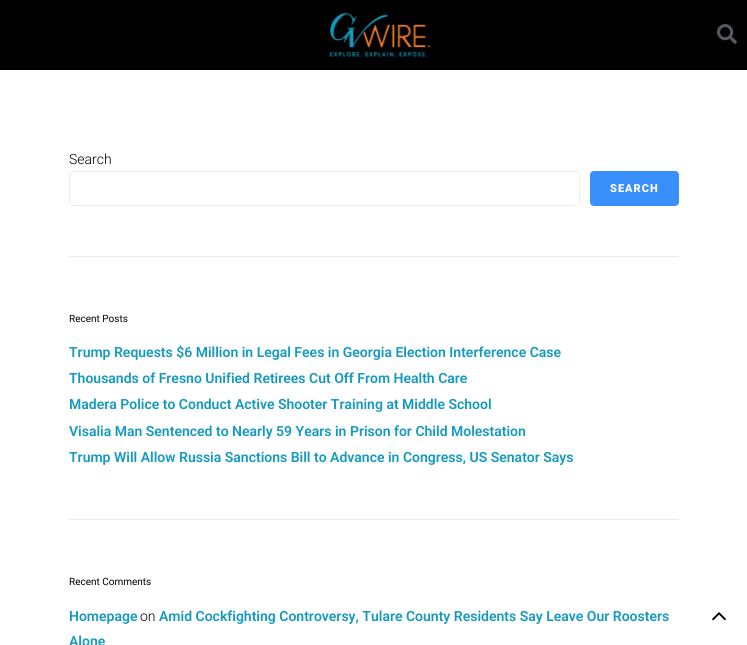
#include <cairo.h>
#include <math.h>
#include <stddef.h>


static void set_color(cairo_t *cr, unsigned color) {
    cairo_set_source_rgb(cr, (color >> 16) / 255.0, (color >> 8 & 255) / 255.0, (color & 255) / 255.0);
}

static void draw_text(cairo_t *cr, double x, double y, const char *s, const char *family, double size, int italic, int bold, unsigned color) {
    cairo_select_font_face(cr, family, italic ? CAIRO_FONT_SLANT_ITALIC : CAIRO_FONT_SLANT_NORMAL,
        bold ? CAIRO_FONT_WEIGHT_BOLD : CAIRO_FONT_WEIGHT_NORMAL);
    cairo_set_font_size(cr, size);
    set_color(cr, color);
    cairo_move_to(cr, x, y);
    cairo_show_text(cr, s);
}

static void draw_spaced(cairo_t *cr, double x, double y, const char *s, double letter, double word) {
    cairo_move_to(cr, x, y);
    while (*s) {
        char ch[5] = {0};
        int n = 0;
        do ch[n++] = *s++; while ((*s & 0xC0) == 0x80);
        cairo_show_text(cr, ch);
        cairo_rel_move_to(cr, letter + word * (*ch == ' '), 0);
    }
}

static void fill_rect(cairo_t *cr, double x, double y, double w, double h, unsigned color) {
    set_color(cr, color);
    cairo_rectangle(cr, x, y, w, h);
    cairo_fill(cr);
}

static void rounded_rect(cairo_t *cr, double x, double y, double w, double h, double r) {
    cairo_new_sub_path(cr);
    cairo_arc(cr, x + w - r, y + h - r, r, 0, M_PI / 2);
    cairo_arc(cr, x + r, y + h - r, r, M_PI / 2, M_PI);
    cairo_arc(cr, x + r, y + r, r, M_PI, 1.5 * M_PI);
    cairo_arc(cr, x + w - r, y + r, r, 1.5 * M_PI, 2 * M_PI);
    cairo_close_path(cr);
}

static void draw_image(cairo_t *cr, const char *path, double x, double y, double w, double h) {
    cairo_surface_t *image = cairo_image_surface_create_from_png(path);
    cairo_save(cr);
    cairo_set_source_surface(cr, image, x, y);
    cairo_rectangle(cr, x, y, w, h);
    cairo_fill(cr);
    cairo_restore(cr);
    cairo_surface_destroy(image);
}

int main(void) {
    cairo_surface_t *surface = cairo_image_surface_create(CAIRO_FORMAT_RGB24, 747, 645);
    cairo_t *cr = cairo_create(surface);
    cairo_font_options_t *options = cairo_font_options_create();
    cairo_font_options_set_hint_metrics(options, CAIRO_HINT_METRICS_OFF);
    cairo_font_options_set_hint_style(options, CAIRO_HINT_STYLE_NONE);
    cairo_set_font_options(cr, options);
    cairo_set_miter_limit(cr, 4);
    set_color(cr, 0xFFFFFF);
    cairo_paint(cr);
    fill_rect(cr, 0, 0, 747, 70, 0x000000);
    draw_image(cr, "assets/img1.png", 329, 12, 102, 45);
    draw_image(cr, "assets/img2.png", 717, 24, 20, 20);
    draw_text(cr, 69, 164, "Search", "Roboto Light", 14, 0, 0, 0x000000);
    rounded_rect(cr, 69.5, 171.5, 510, 34, 3.5);
    set_color(cr, 0xEBECED);
    cairo_set_line_width(cr, 1);
    cairo_stroke(cr);
    set_color(cr, 0x398FFC);
    rounded_rect(cr, 590, 171, 89, 35, 4);
    cairo_fill(cr);
    cairo_select_font_face(cr, "Roboto Black", CAIRO_FONT_SLANT_NORMAL, CAIRO_FONT_WEIGHT_NORMAL);
    cairo_set_font_size(cr, 11);
    set_color(cr, 0xFFFFFF);
    draw_spaced(cr, 610, 192, "SEARCH", 1, 0);
    fill_rect(cr, 69, 256, 610, 1, 0xEBECED);
    draw_text(cr, 69, 322, "Recent Posts", "Roboto", 10, 0, 0, 0x000000);
    draw_text(cr, 69, 357, "Trump Requests $6 Million in Legal Fees in Georgia Election Interference Case", "Roboto SemiBold", 14, 0, 0, 0x139ABE);
    draw_text(cr, 69, 383, "Thousands of Fresno Unified Retirees Cut Off From Health Care", "Roboto SemiBold", 14, 0, 0, 0x139ABE);
    draw_text(cr, 69, 409, "Madera Police to Conduct Active Shooter Training at Middle School", "Roboto SemiBold", 14, 0, 0, 0x139ABE);
    draw_text(cr, 69, 436, "Visalia Man Sentenced to Nearly 59 Years in Prison for Child Molestation", "Roboto SemiBold", 14, 0, 0, 0x139ABE);
    draw_text(cr, 69, 462, "Trump Will Allow Russia Sanctions Bill to Advance in Congress, US Senator Says", "Roboto SemiBold", 14, 0, 0, 0x139ABE);
    fill_rect(cr, 69, 519, 610, 1, 0xEBECED);
    draw_text(cr, 69, 585, "Recent Comments", "Roboto", 10, 0, 0, 0x000000);
    draw_text(cr, 69, 621, "Homepage", "Roboto SemiBold", 14, 0, 0, 0x139ABE);
    draw_text(cr, 140, 621, "on", "Roboto Light", 14, 0, 0, 0x000000);
    draw_text(cr, 159, 621, "Amid Cockfighting Controversy, Tulare County Residents Say Leave Our Roosters", "Roboto SemiBold", 14, 0, 0, 0x139ABE);
    draw_text(cr, 69, 646, "Alone", "Roboto SemiBold", 14, 0, 0, 0x139ABE);
    draw_image(cr, "assets/img3.png", 712, 612, 14, 9);
    cairo_surface_write_to_png(surface, "output.png");
    cairo_font_options_destroy(options);
    cairo_destroy(cr);
    cairo_surface_destroy(surface);
    return 0;
}
